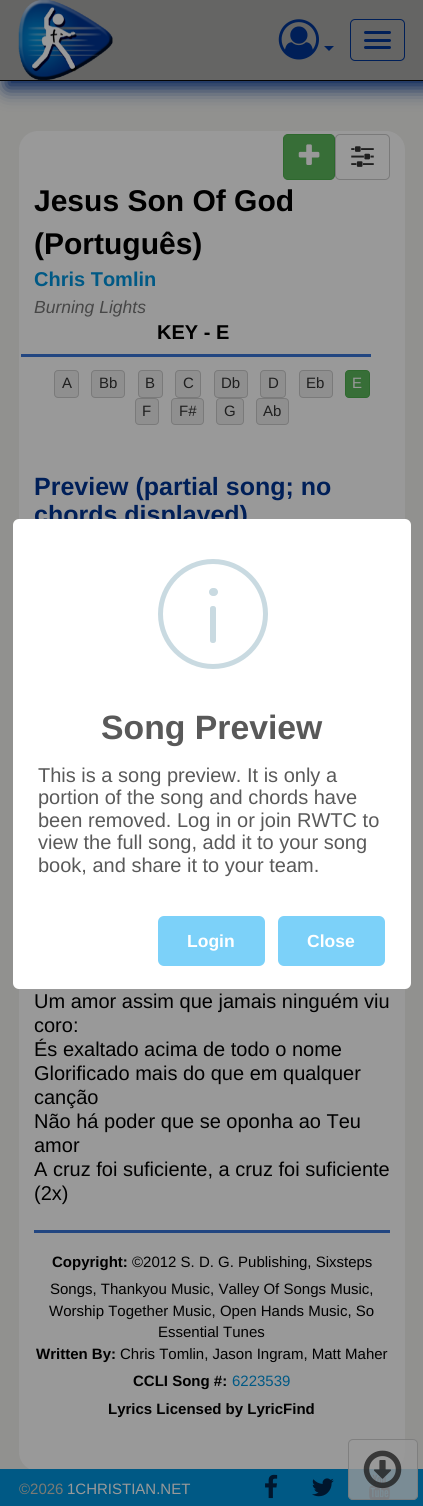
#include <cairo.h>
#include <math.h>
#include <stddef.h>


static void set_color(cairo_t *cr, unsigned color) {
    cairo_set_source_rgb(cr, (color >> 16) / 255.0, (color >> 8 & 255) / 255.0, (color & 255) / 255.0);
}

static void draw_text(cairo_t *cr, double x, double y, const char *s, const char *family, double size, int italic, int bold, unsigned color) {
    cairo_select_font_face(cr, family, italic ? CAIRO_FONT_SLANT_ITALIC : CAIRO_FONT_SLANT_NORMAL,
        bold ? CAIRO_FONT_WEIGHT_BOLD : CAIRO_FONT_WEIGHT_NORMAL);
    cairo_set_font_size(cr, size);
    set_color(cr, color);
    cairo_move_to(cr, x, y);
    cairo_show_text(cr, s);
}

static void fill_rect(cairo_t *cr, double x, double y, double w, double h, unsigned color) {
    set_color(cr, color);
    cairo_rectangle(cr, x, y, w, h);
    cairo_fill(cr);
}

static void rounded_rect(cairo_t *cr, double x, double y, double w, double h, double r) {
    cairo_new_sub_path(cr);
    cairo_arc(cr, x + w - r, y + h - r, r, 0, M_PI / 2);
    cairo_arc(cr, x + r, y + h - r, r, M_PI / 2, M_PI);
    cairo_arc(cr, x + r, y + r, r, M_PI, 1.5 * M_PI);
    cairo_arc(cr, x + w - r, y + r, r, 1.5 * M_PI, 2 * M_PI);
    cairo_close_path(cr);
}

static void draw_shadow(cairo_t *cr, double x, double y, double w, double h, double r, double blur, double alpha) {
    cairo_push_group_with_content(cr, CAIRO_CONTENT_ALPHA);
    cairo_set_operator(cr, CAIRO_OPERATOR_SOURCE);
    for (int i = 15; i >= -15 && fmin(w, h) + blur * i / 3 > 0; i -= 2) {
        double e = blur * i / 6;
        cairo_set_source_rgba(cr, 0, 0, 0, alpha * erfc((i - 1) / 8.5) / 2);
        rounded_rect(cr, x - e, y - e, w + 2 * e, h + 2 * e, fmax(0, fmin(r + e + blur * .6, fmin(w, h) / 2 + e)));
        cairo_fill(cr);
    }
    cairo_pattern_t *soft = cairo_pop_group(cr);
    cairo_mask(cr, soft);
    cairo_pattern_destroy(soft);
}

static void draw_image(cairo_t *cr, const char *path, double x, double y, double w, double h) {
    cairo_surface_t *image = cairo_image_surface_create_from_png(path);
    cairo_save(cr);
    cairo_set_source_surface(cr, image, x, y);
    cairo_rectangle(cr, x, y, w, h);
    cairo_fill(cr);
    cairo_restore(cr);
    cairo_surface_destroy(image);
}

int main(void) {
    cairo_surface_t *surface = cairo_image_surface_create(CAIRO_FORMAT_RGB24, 423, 1506);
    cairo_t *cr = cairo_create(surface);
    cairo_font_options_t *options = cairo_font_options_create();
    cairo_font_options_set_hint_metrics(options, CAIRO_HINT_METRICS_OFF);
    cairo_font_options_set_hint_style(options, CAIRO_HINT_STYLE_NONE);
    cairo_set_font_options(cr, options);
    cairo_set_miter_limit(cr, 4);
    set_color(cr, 0x91918F);
    cairo_paint(cr);
    set_color(cr, 0x001F58);
    draw_shadow(cr, 6, 6, 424, 82, 0, 9.5, 1);
    fill_rect(cr, 0, 80, 423, 1, 0x050505);
    fill_rect(cr, 0, 0, 423, 80, 0x656564);
    draw_image(cr, "assets/img1.png", 18, 0, 95, 80);
    draw_image(cr, "assets/img2.png", 278, 19, 41, 41);
    set_color(cr, 0x001F58);
    cairo_new_path(cr);
    cairo_move_to(cr, 324, 46);
    cairo_line_to(cr, 334, 46);
    cairo_line_to(cr, 329, 51);
    cairo_close_path(cr);
    cairo_fill(cr);
    rounded_rect(cr, 350.5, 19.5, 54, 41, 4.5);
    cairo_set_line_width(cr, 1);
    cairo_stroke(cr);
    rounded_rect(cr, 364, 31, 27, 3, 1.5);
    cairo_fill(cr);
    rounded_rect(cr, 364, 39, 27, 3, 1.5);
    cairo_fill(cr);
    rounded_rect(cr, 364, 46, 27, 3, 1.5);
    cairo_fill(cr);
    set_color(cr, 0x999999);
    rounded_rect(cr, 19, 131, 386, 1340, 19);
    cairo_fill(cr);
    set_color(cr, 0x376E37);
    rounded_rect(cr, 283.5, 134.5, 51, 45, 4.5);
    cairo_fill_preserve(cr);
    set_color(cr, 0x2E682E);
    cairo_stroke(cr);
    draw_image(cr, "assets/img3.png", 298, 144, 22, 21);
    rounded_rect(cr, 335.5, 134.5, 54, 45, 4.5);
    set_color(cr, 0x7A7A7A);
    cairo_stroke(cr);
    draw_image(cr, "assets/img4.png", 351, 146, 23, 21);
    fill_rect(cr, 21, 354, 350, 3, 0x224681);
    draw_text(cr, 34, 211, "Jesus Son Of God", "Liberation Sans", 30, 0, 1, 0x000000);
    draw_text(cr, 34, 254, "(Português)", "Liberation Sans", 30, 0, 1, 0x000000);
    draw_text(cr, 34, 286, "Chris Tomlin", "Liberation Sans", 20, 0, 1, 0x005985);
    draw_text(cr, 34, 313, "Burning Lights", "Liberation Sans", 17.5, 1, 0, 0x474747);
    draw_text(cr, 157, 339, "KEY - E", "Liberation Sans", 20, 0, 1, 0x000000);
    set_color(cr, 0x8F8F8F);
    rounded_rect(cr, 54.5, 370.5, 24, 27, 3.5);
    cairo_fill_preserve(cr);
    set_color(cr, 0x7A7A7A);
    cairo_stroke(cr);
    draw_text(cr, 62, 388, "A", "Liberation Sans", 15, 0, 0, 0x1F1F1F);
    set_color(cr, 0x8F8F8F);
    rounded_rect(cr, 91.5, 370.5, 33, 27, 3.5);
    cairo_fill_preserve(cr);
    set_color(cr, 0x7A7A7A);
    cairo_stroke(cr);
    draw_text(cr, 99, 388, "Bb", "Liberation Sans", 15, 0, 0, 0x1F1F1F);
    set_color(cr, 0x8F8F8F);
    rounded_rect(cr, 138.5, 370.5, 24, 27, 3.5);
    cairo_fill_preserve(cr);
    set_color(cr, 0x7A7A7A);
    cairo_stroke(cr);
    draw_text(cr, 145, 388, "B", "Liberation Sans", 15, 0, 0, 0x1F1F1F);
    set_color(cr, 0x8F8F8F);
    rounded_rect(cr, 175.5, 370.5, 25, 27, 3.5);
    cairo_fill_preserve(cr);
    set_color(cr, 0x7A7A7A);
    cairo_stroke(cr);
    draw_text(cr, 183, 388, "C", "Liberation Sans", 15, 0, 0, 0x1F1F1F);
    set_color(cr, 0x8F8F8F);
    rounded_rect(cr, 214.5, 370.5, 33, 27, 3.5);
    cairo_fill_preserve(cr);
    set_color(cr, 0x7A7A7A);
    cairo_stroke(cr);
    draw_text(cr, 221, 388, "Db", "Liberation Sans", 15, 0, 0, 0x1F1F1F);
    set_color(cr, 0x8F8F8F);
    rounded_rect(cr, 260.5, 370.5, 25, 27, 3.5);
    cairo_fill_preserve(cr);
    set_color(cr, 0x7A7A7A);
    cairo_stroke(cr);
    draw_text(cr, 268, 388, "D", "Liberation Sans", 15, 0, 0, 0x1F1F1F);
    set_color(cr, 0x8F8F8F);
    rounded_rect(cr, 299.5, 370.5, 33, 27, 3.5);
    cairo_fill_preserve(cr);
    set_color(cr, 0x7A7A7A);
    cairo_stroke(cr);
    draw_text(cr, 306, 388, "Eb", "Liberation Sans", 15, 0, 0, 0x1F1F1F);
    set_color(cr, 0x376E37);
    rounded_rect(cr, 345.5, 370.5, 24, 27, 3.5);
    cairo_fill_preserve(cr);
    set_color(cr, 0x2E682E);
    cairo_stroke(cr);
    draw_text(cr, 352, 388, "E", "Liberation Sans", 15, 0, 0, 0x999999);
    set_color(cr, 0x8F8F8F);
    rounded_rect(cr, 135.5, 398.5, 23, 26, 3.5);
    cairo_fill_preserve(cr);
    set_color(cr, 0x7A7A7A);
    cairo_stroke(cr);
    draw_text(cr, 142, 416, "F", "Liberation Sans", 15, 0, 0, 0x1F1F1F);
    set_color(cr, 0x8F8F8F);
    rounded_rect(cr, 171.5, 398.5, 32, 26, 3.5);
    cairo_fill_preserve(cr);
    set_color(cr, 0x7A7A7A);
    cairo_stroke(cr);
    draw_text(cr, 179, 416, "F#", "Liberation Sans", 15, 0, 0, 0x1F1F1F);
    set_color(cr, 0x8F8F8F);
    rounded_rect(cr, 216.5, 398.5, 27, 26, 3.5);
    cairo_fill_preserve(cr);
    set_color(cr, 0x7A7A7A);
    cairo_stroke(cr);
    draw_text(cr, 224, 416, "G", "Liberation Sans", 15, 0, 0, 0x1F1F1F);
    set_color(cr, 0x8F8F8F);
    rounded_rect(cr, 256.5, 398.5, 32, 26, 3.5);
    cairo_fill_preserve(cr);
    set_color(cr, 0x7A7A7A);
    cairo_stroke(cr);
    draw_text(cr, 263, 416, "Ab", "Liberation Sans", 15, 0, 0, 0x1F1F1F);
    draw_text(cr, 34, 495, "Preview (partial song; no", "Liberation Sans", 25, 0, 1, 0x001F58);
    draw_text(cr, 34, 523, "chords displayed)", "Liberation Sans", 25, 0, 1, 0x001F58);
    draw_text(cr, 34, 1008, "Um amor assim que jamais ninguém viu", "Liberation Sans", 20, 0, 0, 0x000000);
    draw_text(cr, 34, 1032, "coro:", "Liberation Sans", 20, 0, 0, 0x000000);
    draw_text(cr, 34, 1056, "És exaltado acima de todo o nome", "Liberation Sans", 20, 0, 0, 0x000000);
    draw_text(cr, 34, 1080, "Glorificado mais do que em qualquer", "Liberation Sans", 20, 0, 0, 0x000000);
    draw_text(cr, 34, 1104, "canção", "Liberation Sans", 20, 0, 0, 0x000000);
    draw_text(cr, 34, 1128, "Não há poder que se oponha ao Teu", "Liberation Sans", 20, 0, 0, 0x000000);
    draw_text(cr, 34, 1152, "amor", "Liberation Sans", 20, 0, 0, 0x000000);
    draw_text(cr, 34, 1176, "A cruz foi suficiente, a cruz foi suficiente", "Liberation Sans", 20, 0, 0, 0x000000);
    draw_text(cr, 34, 1200, "(2x)", "Liberation Sans", 20, 0, 0, 0x000000);
    fill_rect(cr, 34, 1230, 356, 3, 0x224681);
    draw_text(cr, 52, 1267, "Copyright:", "Liberation Sans", 15, 0, 1, 0x000000);
    draw_text(cr, 132, 1267, "©2012 S. D. G. Publishing, Sixsteps", "Liberation Sans", 15, 0, 0, 0x000000);
    draw_text(cr, 50, 1294, "Songs, Thankyou Music, Valley Of Songs Music,", "Liberation Sans", 15, 0, 0, 0x000000);
    draw_text(cr, 49, 1316, "Worship Together Music, Open Hands Music, So", "Liberation Sans", 15, 0, 0, 0x000000);
    draw_text(cr, 158, 1337, "Essential Tunes", "Liberation Sans", 15, 0, 0, 0x000000);
    draw_text(cr, 36, 1359, "Written By:", "Liberation Sans", 15, 0, 1, 0x000000);
    draw_text(cr, 120, 1359, "Chris Tomlin, Jason Ingram, Matt Maher", "Liberation Sans", 15, 0, 0, 0x000000);
    draw_text(cr, 133, 1386, "CCLI Song #:", "Liberation Sans", 15, 0, 1, 0x000000);
    draw_text(cr, 232, 1386, "6223539", "Liberation Sans", 15, 0, 0, 0x005985);
    draw_text(cr, 108, 1414, "Lyrics Licensed by LyricFind", "Liberation Sans", 15, 0, 1, 0x000000);
    set_color(cr, 0xFFFFFF);
    rounded_rect(cr, 13, 519, 398, 470, 6);
    cairo_fill(cr);
    cairo_arc(cr, 213, 614, 52.5, 0, 2 * M_PI);
    set_color(cr, 0xC9DAE1);
    cairo_set_line_width(cr, 5);
    cairo_stroke(cr);
    rounded_rect(cr, 209, 588, 9, 8, 4);
    cairo_fill(cr);
    rounded_rect(cr, 210, 606, 6, 37, 2.5);
    cairo_fill(cr);
    draw_text(cr, 101, 739, "Song Preview", "Liberation Sans", 33.75, 0, 1, 0x595959);
    draw_text(cr, 38, 782, "This is a song preview. It is only a", "Liberation Sans", 20, 0, 0, 0x595959);
    draw_text(cr, 38, 804, "portion of the song and chords have", "Liberation Sans", 20, 0, 0, 0x595959);
    draw_text(cr, 38, 827, "been removed. Log in or join RWTC to", "Liberation Sans", 20, 0, 0, 0x595959);
    draw_text(cr, 38, 849, "view the full song, add it to your song", "Liberation Sans", 20, 0, 0, 0x595959);
    draw_text(cr, 38, 872, "book, and share it to your team.", "Liberation Sans", 20, 0, 0, 0x595959);
    set_color(cr, 0x7CD1F9);
    rounded_rect(cr, 158, 916, 107, 50, 6);
    cairo_fill(cr);
    draw_text(cr, 187, 947, "Login", "Liberation Sans", 17.5, 0, 1, 0xFFFFFF);
    set_color(cr, 0x7CD1F9);
    rounded_rect(cr, 278, 916, 107, 50, 6);
    cairo_fill(cr);
    draw_text(cr, 307, 947, "Close", "Liberation Sans", 17.5, 0, 1, 0xFFFFFF);
    fill_rect(cr, 0, 1469, 423, 37, 0x005985);
    draw_text(cr, 19, 1494, "©2026", "Liberation Sans", 15, 0, 0, 0x7B7A74);
    draw_text(cr, 67, 1494, "1CHRISTIAN.NET", "Liberation Sans", 15, 0, 0, 0x999999);
    draw_image(cr, "assets/img5.png", 265, 1474, 13, 25);
    draw_image(cr, "assets/img6.png", 312, 1478, 22, 19);
    draw_image(cr, "assets/img7.png", 369, 1474, 21, 26);
    cairo_set_source_rgba(cr, 0.6, 0.6, 0.6, 0.8);
    rounded_rect(cr, 348, 1439, 70, 61, 5);
    cairo_fill(cr);
    rounded_rect(cr, 348.5, 1439.5, 69, 60, 4.5);
    cairo_set_source_rgba(cr, 0.478, 0.478, 0.478, 0.8);
    cairo_set_line_width(cr, 1);
    cairo_stroke(cr);
    draw_image(cr, "assets/img8.png", 363, 1450, 39, 39);
    cairo_surface_write_to_png(surface, "output.png");
    cairo_font_options_destroy(options);
    cairo_destroy(cr);
    cairo_surface_destroy(surface);
    return 0;
}
